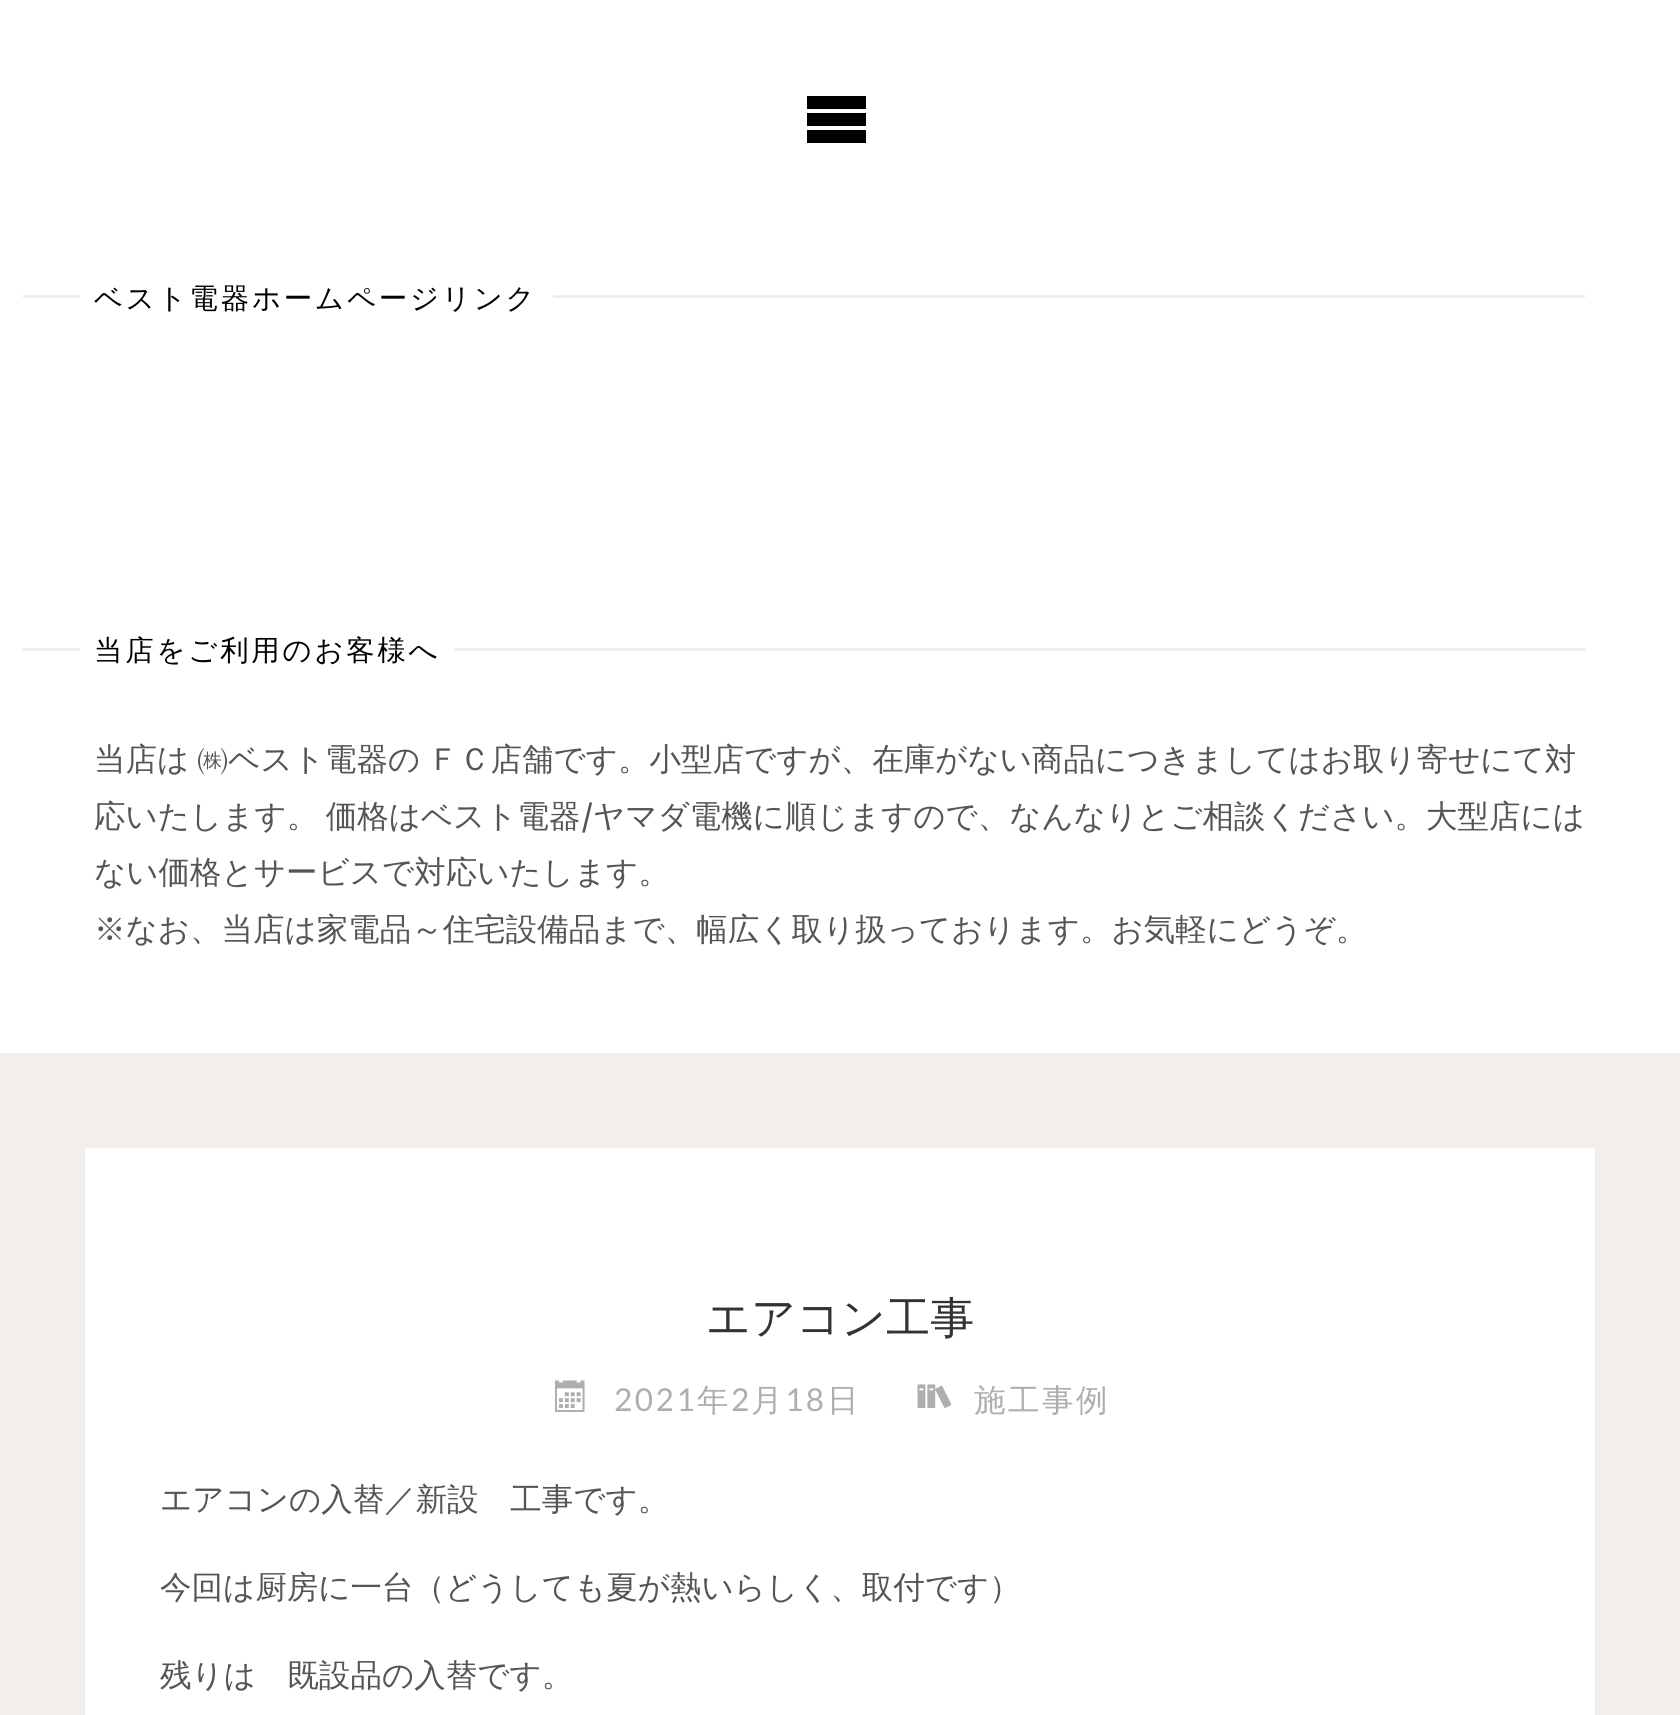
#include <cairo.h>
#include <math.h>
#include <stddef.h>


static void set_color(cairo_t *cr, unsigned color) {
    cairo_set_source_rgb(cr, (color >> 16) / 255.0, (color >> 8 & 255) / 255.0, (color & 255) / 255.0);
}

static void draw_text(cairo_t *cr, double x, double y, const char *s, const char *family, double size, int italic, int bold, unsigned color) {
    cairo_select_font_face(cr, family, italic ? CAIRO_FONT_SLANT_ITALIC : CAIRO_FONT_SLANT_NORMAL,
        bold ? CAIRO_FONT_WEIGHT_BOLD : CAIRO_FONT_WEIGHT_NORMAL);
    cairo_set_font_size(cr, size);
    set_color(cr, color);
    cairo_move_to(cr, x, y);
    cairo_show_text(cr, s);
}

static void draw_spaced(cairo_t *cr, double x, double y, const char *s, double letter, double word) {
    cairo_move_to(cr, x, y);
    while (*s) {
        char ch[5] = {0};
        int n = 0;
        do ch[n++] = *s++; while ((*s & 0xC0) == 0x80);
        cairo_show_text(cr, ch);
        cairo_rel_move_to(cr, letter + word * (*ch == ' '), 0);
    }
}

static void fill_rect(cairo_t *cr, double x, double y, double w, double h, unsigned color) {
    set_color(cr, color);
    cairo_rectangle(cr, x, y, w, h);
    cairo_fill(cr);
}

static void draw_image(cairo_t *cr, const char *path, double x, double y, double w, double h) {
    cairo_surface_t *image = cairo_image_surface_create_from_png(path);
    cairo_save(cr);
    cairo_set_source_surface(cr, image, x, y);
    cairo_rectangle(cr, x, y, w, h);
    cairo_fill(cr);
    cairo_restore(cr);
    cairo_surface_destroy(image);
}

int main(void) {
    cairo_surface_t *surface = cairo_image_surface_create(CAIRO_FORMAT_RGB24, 1680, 1715);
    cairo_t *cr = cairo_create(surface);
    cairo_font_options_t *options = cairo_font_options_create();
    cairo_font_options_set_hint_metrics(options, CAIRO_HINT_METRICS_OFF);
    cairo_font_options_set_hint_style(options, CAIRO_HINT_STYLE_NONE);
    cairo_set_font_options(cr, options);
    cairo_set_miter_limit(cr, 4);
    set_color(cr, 0xF3EEEB);
    cairo_paint(cr);
    fill_rect(cr, 0, 0, 1680, 1053, 0xFFFFFF);
    set_color(cr, 0x000000);
    cairo_new_path(cr);
    cairo_move_to(cr, 807, 96);
    cairo_line_to(cr, 866, 96);
    cairo_line_to(cr, 866, 109);
    cairo_line_to(cr, 807, 109);
    cairo_close_path(cr);
    cairo_move_to(cr, 807, 113);
    cairo_line_to(cr, 866, 113);
    cairo_line_to(cr, 866, 126);
    cairo_line_to(cr, 807, 126);
    cairo_close_path(cr);
    cairo_move_to(cr, 807, 130);
    cairo_line_to(cr, 866, 130);
    cairo_line_to(cr, 866, 143);
    cairo_line_to(cr, 807, 143);
    cairo_close_path(cr);
    cairo_fill(cr);
    fill_rect(cr, 23, 295, 1562, 3, 0xEEEEEE);
    fill_rect(cr, 80, 295, 473, 3, 0xFFFFFF);
    cairo_select_font_face(cr, "WenQuanYi Zen Hei Medium", CAIRO_FONT_SLANT_NORMAL, CAIRO_FONT_WEIGHT_NORMAL);
    cairo_set_font_size(cr, 28.4);
    set_color(cr, 0x000000);
    draw_spaced(cr, 94, 308, "ベスト電器ホームページリンク", 2.8, 0);
    fill_rect(cr, 23, 648, 1562, 3, 0xEEEEEE);
    fill_rect(cr, 80, 648, 375, 3, 0xFFFFFF);
    set_color(cr, 0x000000);
    draw_spaced(cr, 94, 660, "当店をご利用のお客様へ", 2.8, 0);
    cairo_set_font_size(cr, 31.5);
    set_color(cr, 0x555555);
    draw_spaced(cr, 94, 770, "当店は ㈱ベスト電器の ＦＣ店舗です。小型店ですが、在庫がない商品につきましてはお取り寄せにて対", 0, -2);
    draw_spaced(cr, 94, 827, "応いたします。 価格はベスト電器", 0, -2);
    draw_text(cr, 581, 827, "/", "Merriweather", 31.5, 0, 0, 0x555555);
    draw_text(cr, 593, 827, "ヤマダ電機に順じますので、なんなりとご相談ください。大型店には", "WenQuanYi Zen Hei Medium", 31.5, 0, 0, 0x555555);
    draw_text(cr, 94, 883, "ない価格とサービスで対応いたします。", "WenQuanYi Zen Hei Medium", 31.5, 0, 0, 0x555555);
    draw_text(cr, 94, 940, "※なお、当店は家電品～住宅設備品まで、幅広く取り扱っております。お気軽にどうぞ。", "WenQuanYi Zen Hei Medium", 31.5, 0, 0, 0x555555);
    fill_rect(cr, 85, 1148, 1510, 567, 0xFFFFFF);
    draw_text(cr, 706, 1333, "エアコン工事", "WenQuanYi Zen Hei Medium", 44, 0, 0, 0x333333);
    draw_image(cr, "assets/img1.png", 555, 1380, 30, 32);
    cairo_select_font_face(cr, "Lato", CAIRO_FONT_SLANT_NORMAL, CAIRO_FONT_WEIGHT_NORMAL);
    cairo_set_font_size(cr, 31.5);
    set_color(cr, 0xAEAEAE);
    draw_spaced(cr, 614, 1411, "2021", 2.5, 0);
    cairo_select_font_face(cr, "WenQuanYi Zen Hei Medium", CAIRO_FONT_SLANT_NORMAL, CAIRO_FONT_WEIGHT_NORMAL);
    draw_spaced(cr, 697, 1411, "年", 2.5, 0);
    cairo_select_font_face(cr, "Lato", CAIRO_FONT_SLANT_NORMAL, CAIRO_FONT_WEIGHT_NORMAL);
    draw_spaced(cr, 731, 1411, "2", 2.5, 0);
    cairo_select_font_face(cr, "WenQuanYi Zen Hei Medium", CAIRO_FONT_SLANT_NORMAL, CAIRO_FONT_WEIGHT_NORMAL);
    draw_spaced(cr, 751, 1411, "月", 2.5, 0);
    cairo_select_font_face(cr, "Lato", CAIRO_FONT_SLANT_NORMAL, CAIRO_FONT_WEIGHT_NORMAL);
    draw_spaced(cr, 785, 1411, "18", 2.5, 0);
    cairo_select_font_face(cr, "WenQuanYi Zen Hei Medium", CAIRO_FONT_SLANT_NORMAL, CAIRO_FONT_WEIGHT_NORMAL);
    draw_spaced(cr, 827, 1411, "日", 2.5, 0);
    draw_image(cr, "assets/img2.png", 917, 1384, 35, 24);
    draw_spaced(cr, 974, 1411, "施工事例", 2.5, 0);
    draw_text(cr, 160, 1510, "エアコンの入替／新設　工事です。", "WenQuanYi Zen Hei Medium", 31.5, 0, 0, 0x555555);
    draw_text(cr, 160, 1598, "今回は厨房に一台（どうしても夏が熱いらしく、取付です）", "WenQuanYi Zen Hei Medium", 31.5, 0, 0, 0x555555);
    draw_text(cr, 160, 1686, "残りは　既設品の入替です。", "WenQuanYi Zen Hei Medium", 31.5, 0, 0, 0x555555);
    cairo_surface_write_to_png(surface, "output.png");
    cairo_font_options_destroy(options);
    cairo_destroy(cr);
    cairo_surface_destroy(surface);
    return 0;
}
